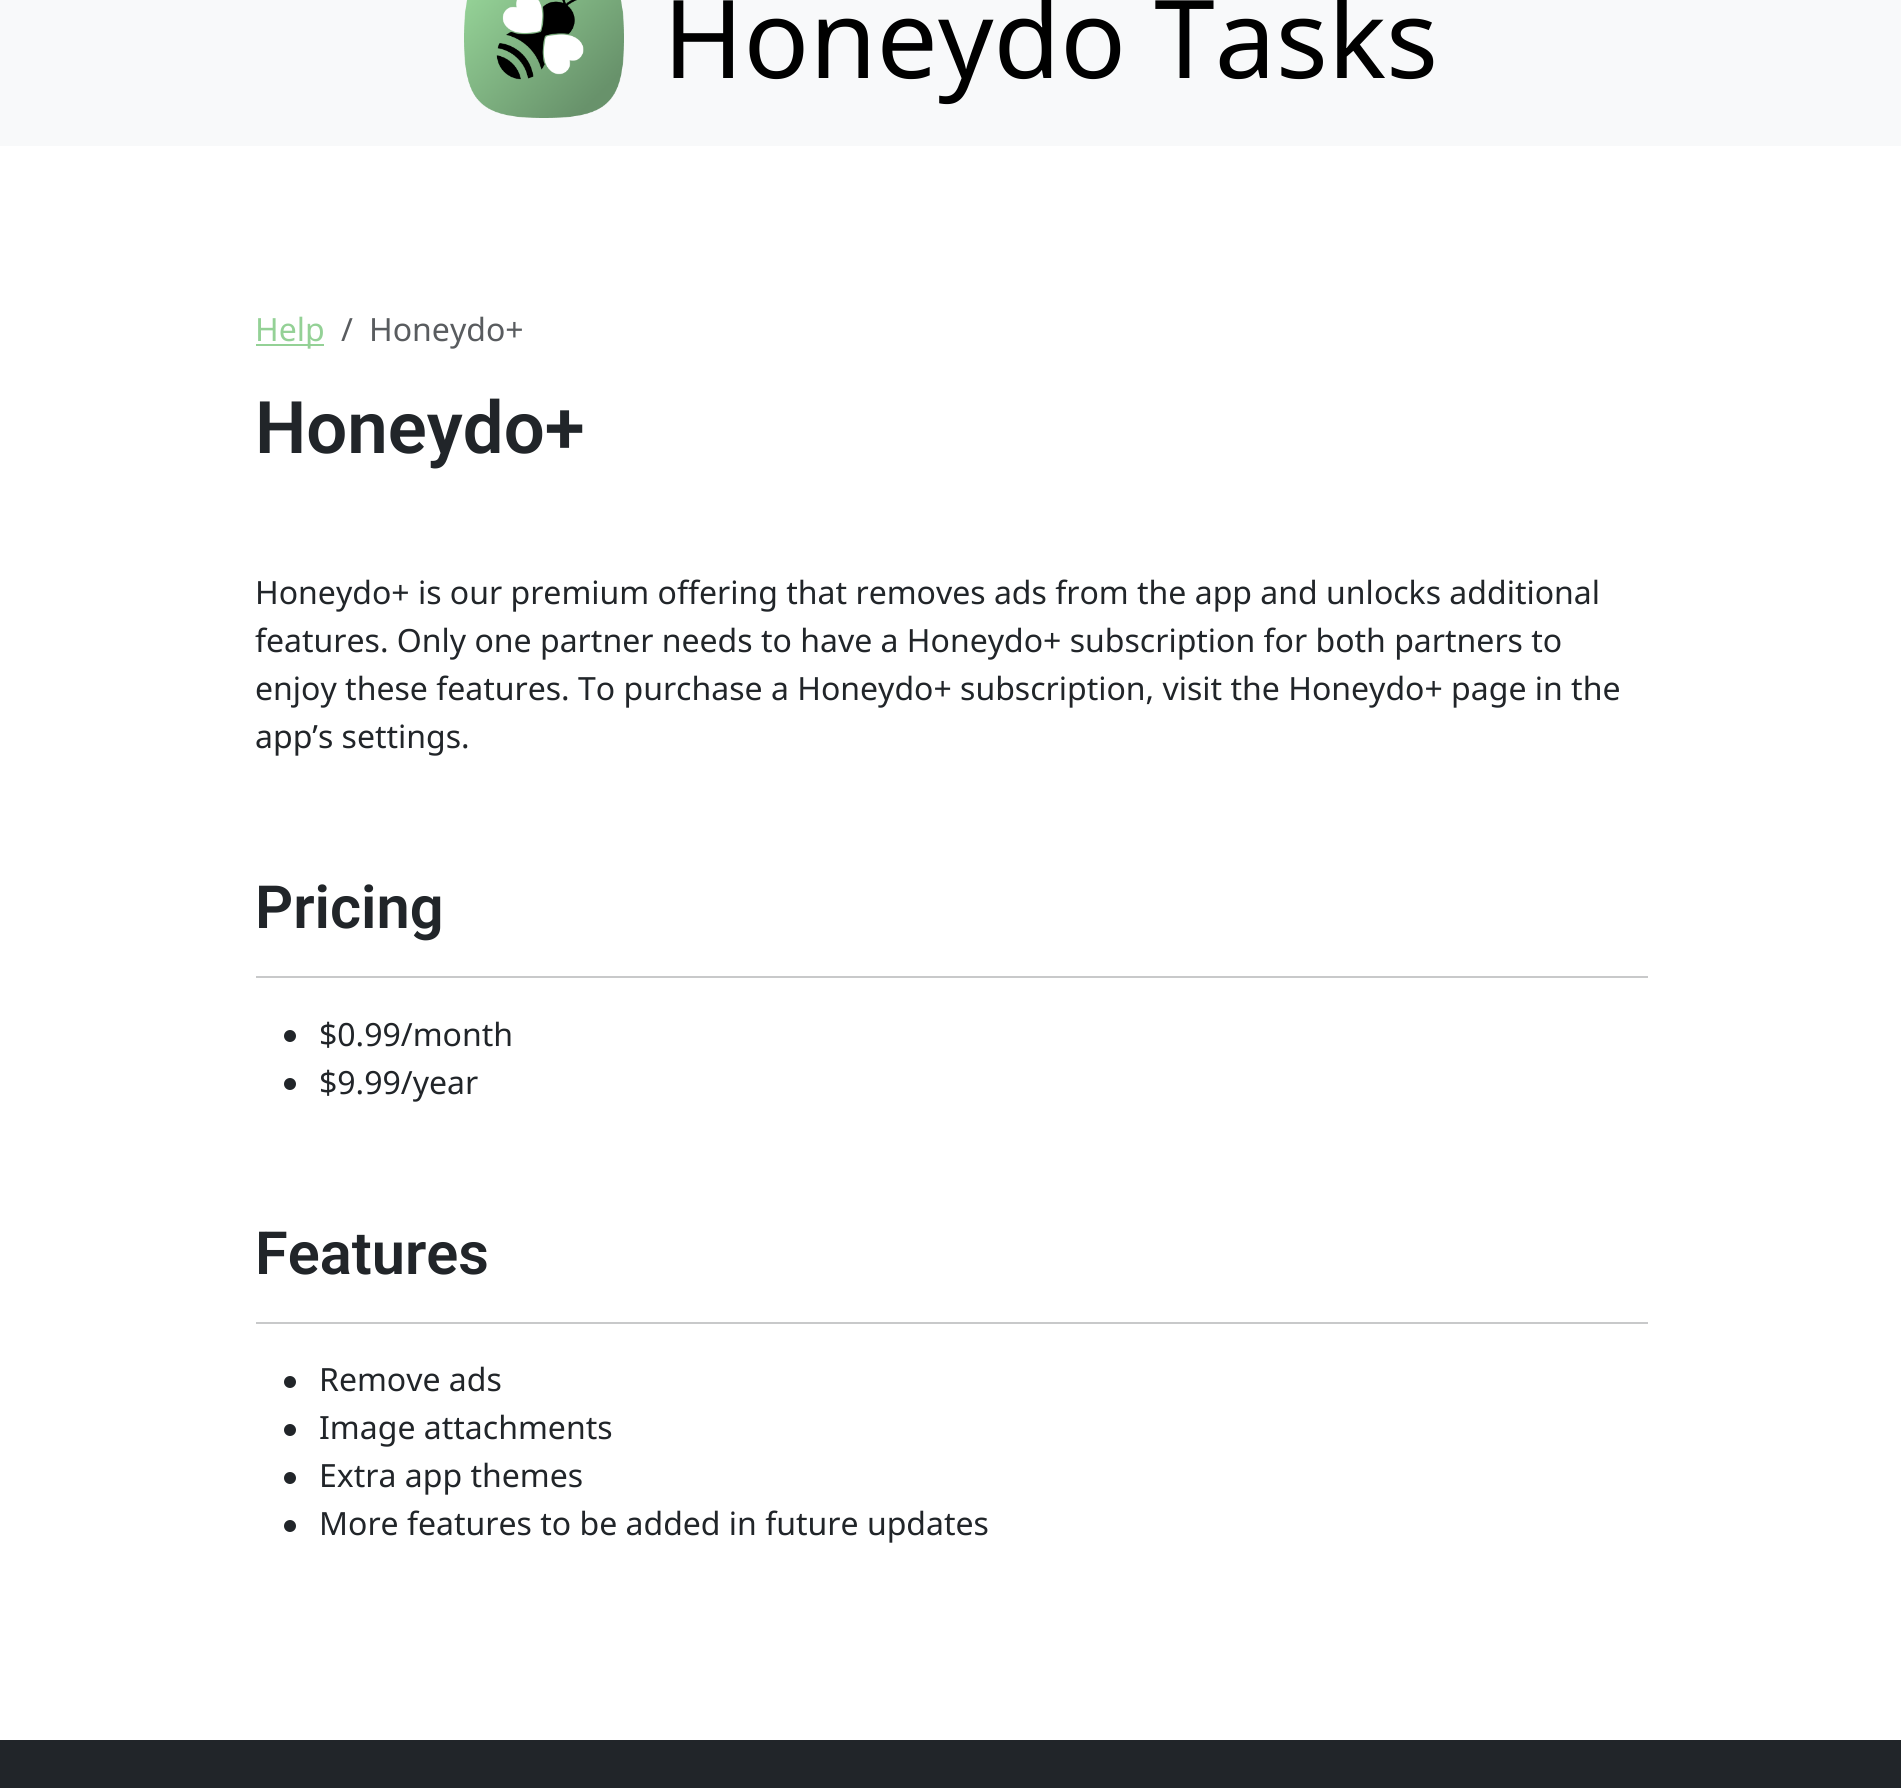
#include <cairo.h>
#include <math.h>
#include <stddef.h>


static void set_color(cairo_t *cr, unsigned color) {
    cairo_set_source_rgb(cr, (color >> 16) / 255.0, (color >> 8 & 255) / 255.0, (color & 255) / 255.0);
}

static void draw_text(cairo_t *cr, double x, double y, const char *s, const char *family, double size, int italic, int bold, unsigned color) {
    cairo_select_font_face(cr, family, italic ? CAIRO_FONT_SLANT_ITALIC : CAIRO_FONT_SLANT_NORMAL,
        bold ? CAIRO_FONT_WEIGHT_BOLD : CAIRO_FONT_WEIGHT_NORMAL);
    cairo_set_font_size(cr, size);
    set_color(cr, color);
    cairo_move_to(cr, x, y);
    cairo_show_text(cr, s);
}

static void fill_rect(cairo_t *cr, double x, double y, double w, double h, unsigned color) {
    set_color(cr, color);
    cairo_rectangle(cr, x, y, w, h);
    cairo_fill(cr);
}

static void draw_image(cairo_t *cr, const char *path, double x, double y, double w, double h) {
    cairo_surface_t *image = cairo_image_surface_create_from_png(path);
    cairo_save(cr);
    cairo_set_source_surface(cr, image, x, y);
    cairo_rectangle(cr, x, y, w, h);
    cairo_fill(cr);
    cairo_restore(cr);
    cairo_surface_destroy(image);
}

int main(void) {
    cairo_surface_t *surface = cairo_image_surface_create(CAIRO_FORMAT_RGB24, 1901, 1788);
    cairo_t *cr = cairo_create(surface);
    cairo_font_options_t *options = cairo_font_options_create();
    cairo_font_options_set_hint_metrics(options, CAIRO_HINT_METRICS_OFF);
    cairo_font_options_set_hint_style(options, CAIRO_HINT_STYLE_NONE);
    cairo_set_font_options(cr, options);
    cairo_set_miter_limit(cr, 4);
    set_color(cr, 0xFFFFFF);
    cairo_paint(cr);
    fill_rect(cr, 0, 0, 1901, 146, 0xF8F9FA);
    draw_image(cr, "assets/img1.png", 464, 0, 160, 118);
    draw_text(cr, 663, 78, "Honeydo Tasks", "Noto Sans", 108.75, 0, 0, 0x000000);
    fill_rect(cr, 256, 344, 68, 2, 0x94D196);
    draw_text(cr, 255, 341, "Help", "Noto Sans", 32, 0, 0, 0x94D196);
    draw_text(cr, 341, 341, "/", "Noto Sans", 32, 0, 0, 0x595C5F);
    draw_text(cr, 369, 341, "Honeydo+", "Noto Sans", 32, 0, 0, 0x595C5F);
    draw_text(cr, 255, 453, "Honeydo+", "Roboto SemiBold", 72.5, 0, 0, 0x212529);
    draw_text(cr, 255, 604, "Honeydo+ is our premium offering that removes ads from the app and unlocks additional", "Noto Sans", 32, 0, 0, 0x212529);
    draw_text(cr, 255, 652, "features. Only one partner needs to have a Honeydo+ subscription for both partners to", "Noto Sans", 32, 0, 0, 0x212529);
    draw_text(cr, 255, 700, "enjoy these features. To purchase a Honeydo+ subscription, visit the Honeydo+ page in the", "Noto Sans", 32, 0, 0, 0x212529);
    draw_text(cr, 255, 748, "app’s settings.", "Noto Sans", 32, 0, 0, 0x212529);
    draw_text(cr, 255, 928, "Pricing", "Roboto SemiBold", 59.5, 0, 0, 0x212529);
    fill_rect(cr, 256, 976, 1392, 2, 0xC8C9CA);
    set_color(cr, 0x212529);
    cairo_new_path(cr);
    cairo_arc(cr, 290, 1036, 6, 0, 2 * M_PI);
    cairo_fill(cr);
    draw_text(cr, 319, 1046, "$0.99/month", "Noto Sans", 32, 0, 0, 0x212529);
    cairo_new_path(cr);
    cairo_arc(cr, 290, 1084, 6, 0, 2 * M_PI);
    cairo_fill(cr);
    draw_text(cr, 319, 1094, "$9.99/year", "Noto Sans", 32, 0, 0, 0x212529);
    draw_text(cr, 255, 1274, "Features", "Roboto SemiBold", 59.5, 0, 0, 0x212529);
    fill_rect(cr, 256, 1322, 1392, 2, 0xC8C9CA);
    set_color(cr, 0x212529);
    cairo_new_path(cr);
    cairo_arc(cr, 290, 1382, 6, 0, 2 * M_PI);
    cairo_fill(cr);
    draw_text(cr, 319, 1391, "Remove ads", "Noto Sans", 32, 0, 0, 0x212529);
    cairo_new_path(cr);
    cairo_arc(cr, 290, 1430, 6, 0, 2 * M_PI);
    cairo_fill(cr);
    draw_text(cr, 319, 1439, "Image attachments", "Noto Sans", 32, 0, 0, 0x212529);
    cairo_new_path(cr);
    cairo_arc(cr, 290, 1478, 6, 0, 2 * M_PI);
    cairo_fill(cr);
    draw_text(cr, 319, 1487, "Extra app themes", "Noto Sans", 32, 0, 0, 0x212529);
    cairo_new_path(cr);
    cairo_arc(cr, 290, 1526, 6, 0, 2 * M_PI);
    cairo_fill(cr);
    draw_text(cr, 319, 1535, "More features to be added in future updates", "Noto Sans", 32, 0, 0, 0x212529);
    fill_rect(cr, 0, 1740, 1901, 48, 0x212529);
    cairo_surface_write_to_png(surface, "output.png");
    cairo_font_options_destroy(options);
    cairo_destroy(cr);
    cairo_surface_destroy(surface);
    return 0;
}
